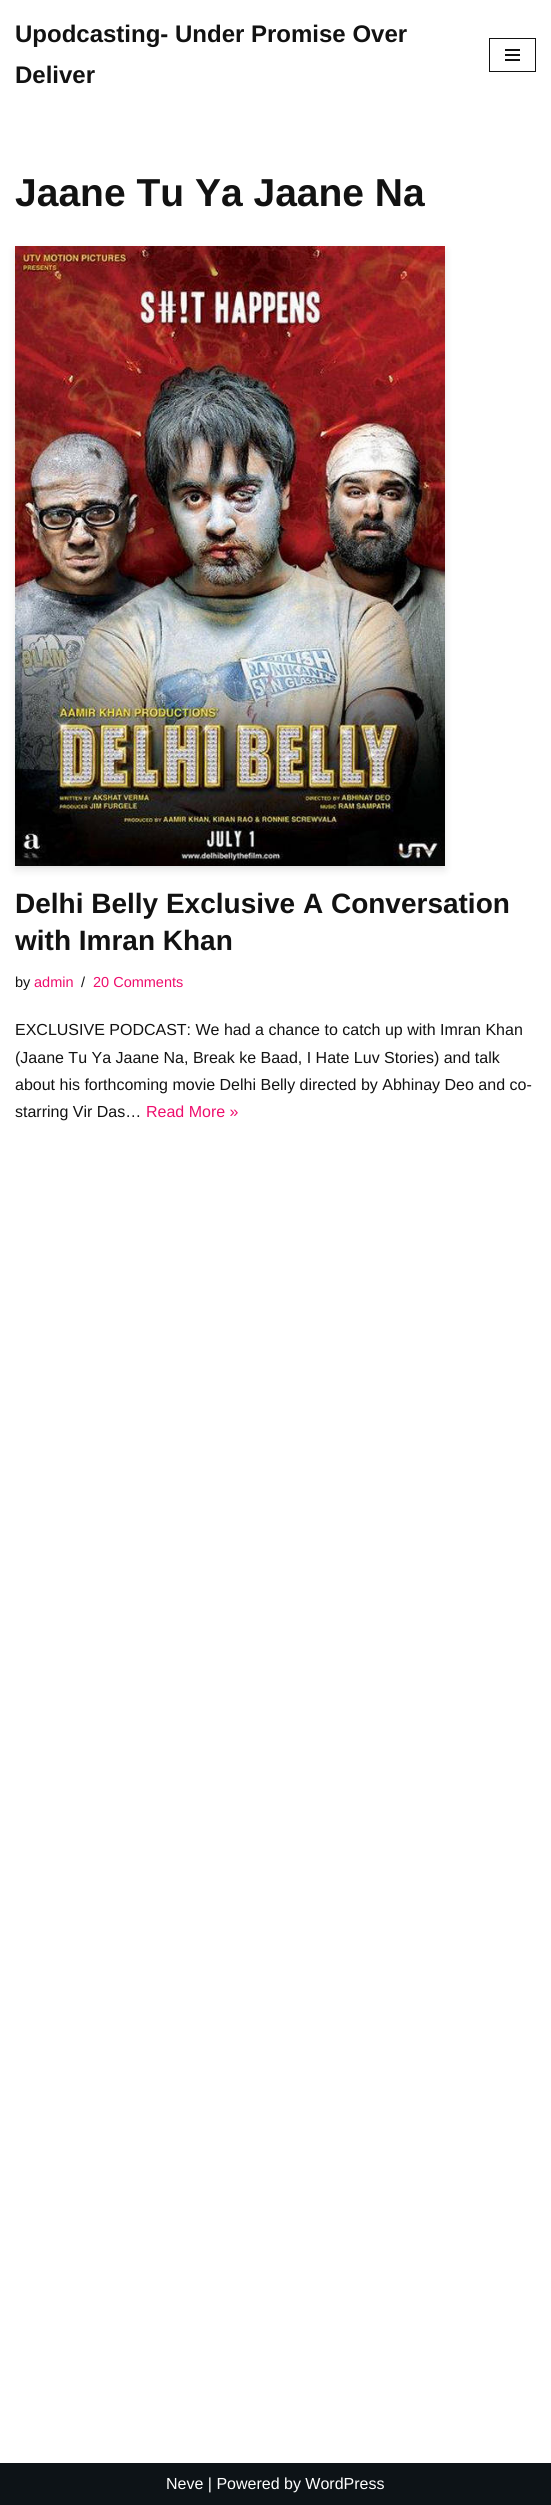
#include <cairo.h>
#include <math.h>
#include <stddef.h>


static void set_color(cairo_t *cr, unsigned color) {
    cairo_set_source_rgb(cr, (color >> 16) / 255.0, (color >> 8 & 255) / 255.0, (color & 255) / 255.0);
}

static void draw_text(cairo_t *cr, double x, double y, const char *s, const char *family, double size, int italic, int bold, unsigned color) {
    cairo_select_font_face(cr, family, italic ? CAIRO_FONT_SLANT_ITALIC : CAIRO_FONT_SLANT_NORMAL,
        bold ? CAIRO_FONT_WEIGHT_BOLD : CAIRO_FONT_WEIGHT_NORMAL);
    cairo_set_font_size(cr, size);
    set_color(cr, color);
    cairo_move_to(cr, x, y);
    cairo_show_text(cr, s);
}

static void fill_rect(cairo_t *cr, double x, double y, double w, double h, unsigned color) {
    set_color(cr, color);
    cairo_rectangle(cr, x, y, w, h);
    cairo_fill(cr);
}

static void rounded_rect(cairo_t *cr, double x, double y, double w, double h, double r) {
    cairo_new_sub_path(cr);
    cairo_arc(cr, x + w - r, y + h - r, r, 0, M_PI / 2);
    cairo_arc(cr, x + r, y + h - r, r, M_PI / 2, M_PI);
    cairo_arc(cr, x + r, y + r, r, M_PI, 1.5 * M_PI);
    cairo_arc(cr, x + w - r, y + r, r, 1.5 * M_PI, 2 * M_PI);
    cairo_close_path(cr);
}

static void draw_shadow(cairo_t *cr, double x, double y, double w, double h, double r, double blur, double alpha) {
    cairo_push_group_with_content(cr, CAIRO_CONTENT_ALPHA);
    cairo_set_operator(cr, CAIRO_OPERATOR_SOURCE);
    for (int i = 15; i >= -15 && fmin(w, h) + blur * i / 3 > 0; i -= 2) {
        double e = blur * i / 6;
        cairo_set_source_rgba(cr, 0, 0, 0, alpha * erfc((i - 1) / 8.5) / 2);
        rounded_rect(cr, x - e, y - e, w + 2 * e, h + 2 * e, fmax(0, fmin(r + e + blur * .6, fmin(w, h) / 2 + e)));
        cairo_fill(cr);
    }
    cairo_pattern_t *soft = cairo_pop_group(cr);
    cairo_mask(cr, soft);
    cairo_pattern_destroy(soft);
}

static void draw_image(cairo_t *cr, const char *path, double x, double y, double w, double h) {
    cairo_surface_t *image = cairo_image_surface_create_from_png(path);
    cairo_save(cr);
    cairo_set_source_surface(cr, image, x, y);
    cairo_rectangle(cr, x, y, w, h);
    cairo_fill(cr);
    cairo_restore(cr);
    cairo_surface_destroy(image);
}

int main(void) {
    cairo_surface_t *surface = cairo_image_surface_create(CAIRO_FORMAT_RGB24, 551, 2505);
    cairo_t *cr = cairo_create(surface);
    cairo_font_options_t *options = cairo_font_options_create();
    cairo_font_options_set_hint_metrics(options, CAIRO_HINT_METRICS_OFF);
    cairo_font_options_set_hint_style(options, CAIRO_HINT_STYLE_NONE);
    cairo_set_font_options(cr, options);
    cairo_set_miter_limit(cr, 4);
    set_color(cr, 0xFFFFFF);
    cairo_paint(cr);
    draw_text(cr, 15, 42, "Upodcasting- Under Promise Over", "Liberation Sans", 24, 0, 1, 0x121212);
    draw_text(cr, 15, 83, "Deliver", "Liberation Sans", 24, 0, 1, 0x121212);
    cairo_rectangle(cr, 489.5, 38.5, 46, 33);
    cairo_set_line_width(cr, 1);
    cairo_stroke(cr);
    fill_rect(cr, 505, 49, 15, 2, 0x121212);
    fill_rect(cr, 505, 54, 15, 2, 0x121212);
    fill_rect(cr, 505, 59, 15, 2, 0x121212);
    draw_text(cr, 15, 206, "Jaane Tu Ya Jaane Na", "Liberation Sans", 39, 0, 1, 0x121212);
    set_color(cr, 0x000000);
    draw_shadow(cr, 15, 250, 430, 620, 0, 4, 0.1);
    draw_shadow(cr, 20, 254, 420, 610, 0, 3, 0.1);
    draw_image(cr, "assets/img1.png", 15, 246, 430, 620);
    draw_text(cr, 15, 913, "Delhi Belly Exclusive A Conversation", "Liberation Sans", 28, 0, 1, 0x121212);
    draw_text(cr, 15, 950, "with Imran Khan", "Liberation Sans", 28, 0, 1, 0x121212);
    draw_text(cr, 15, 987, "by", "Liberation Sans", 14.5, 0, 0, 0x121212);
    draw_text(cr, 34, 987, "admin", "Liberation Sans", 14.5, 0, 0, 0xEE0E6D);
    draw_text(cr, 81, 987, "/", "Liberation Sans", 14.5, 0, 0, 0x121212);
    draw_text(cr, 93, 987, "20 Comments", "Liberation Sans", 14.5, 0, 0, 0xEE0E6D);
    draw_text(cr, 15, 1035, "EXCLUSIVE PODCAST: We had a chance to catch up with Imran Khan", "Liberation Sans", 16, 0, 0, 0x121212);
    draw_text(cr, 15, 1063, "(Jaane Tu Ya Jaane Na, Break ke Baad, I Hate Luv Stories) and talk", "Liberation Sans", 16, 0, 0, 0x121212);
    draw_text(cr, 15, 1090, "about his forthcoming movie Delhi Belly directed by Abhinay Deo and co-", "Liberation Sans", 16, 0, 0, 0x121212);
    draw_text(cr, 15, 1117, "starring Vir Das…", "Liberation Sans", 16, 0, 0, 0x121212);
    draw_text(cr, 146, 1117, "Read More »", "Liberation Sans", 16, 0, 0, 0xEE0E6D);
    fill_rect(cr, 0, 2463, 551, 42, 0x0D1317);
    draw_text(cr, 166, 2489, "Neve | Powered by WordPress", "Liberation Sans", 16, 0, 0, 0xFFFFFF);
    cairo_surface_write_to_png(surface, "output.png");
    cairo_font_options_destroy(options);
    cairo_destroy(cr);
    cairo_surface_destroy(surface);
    return 0;
}
